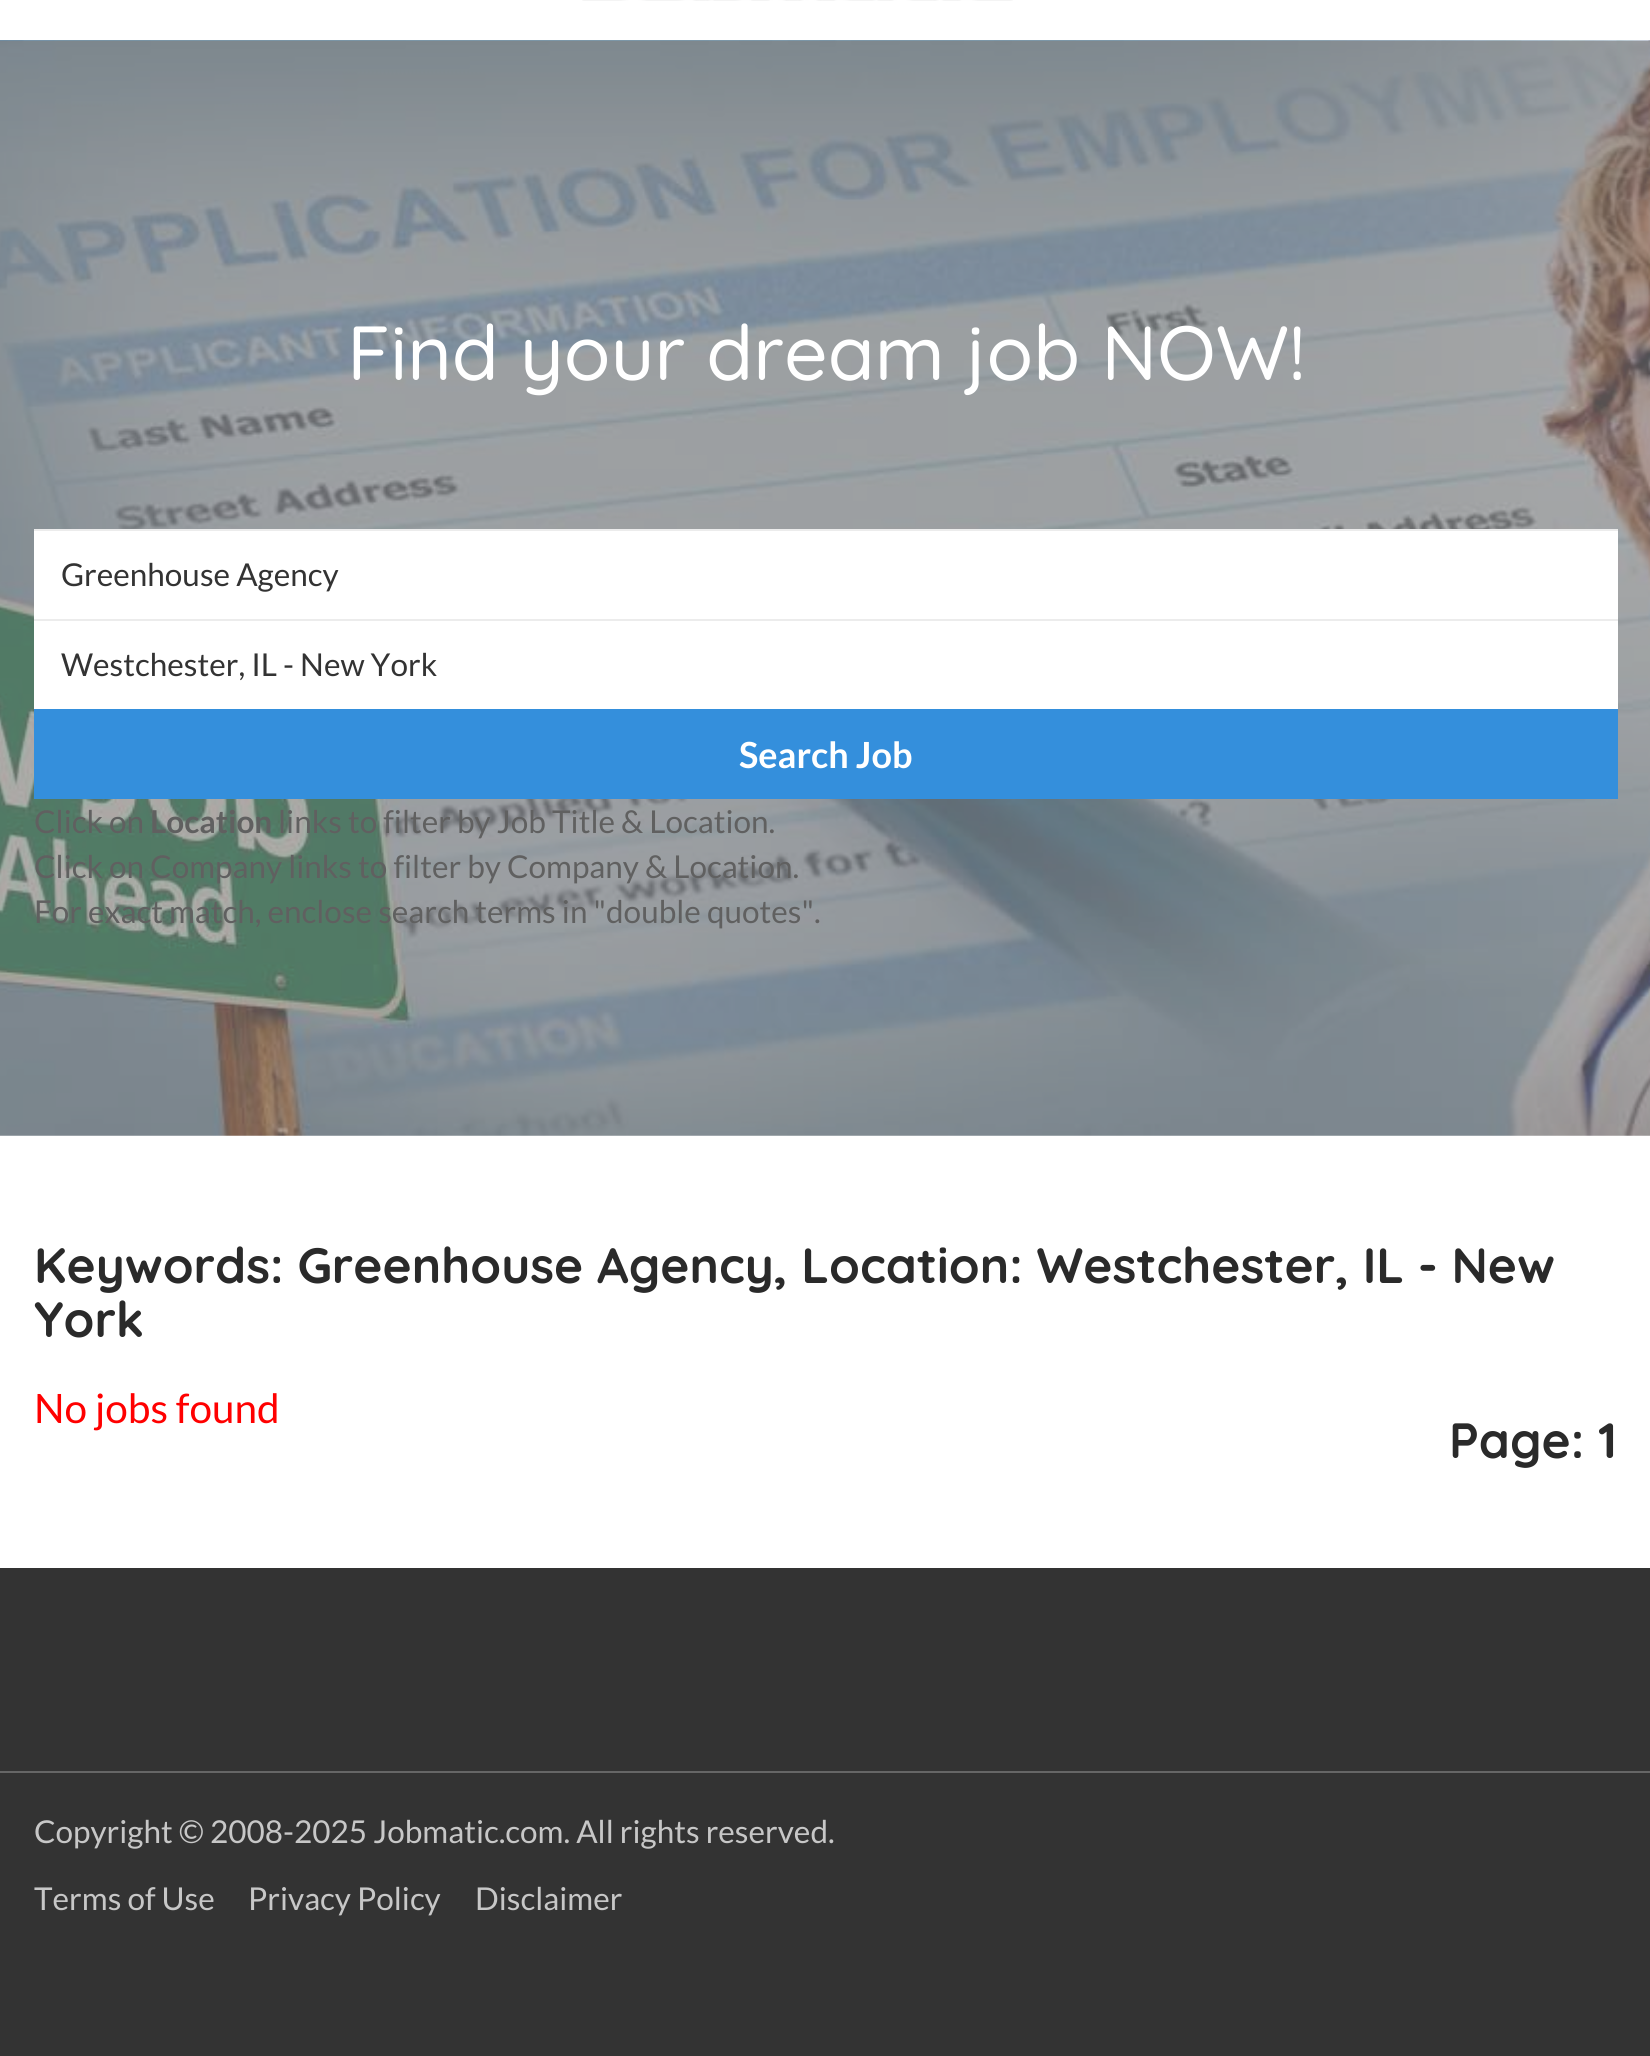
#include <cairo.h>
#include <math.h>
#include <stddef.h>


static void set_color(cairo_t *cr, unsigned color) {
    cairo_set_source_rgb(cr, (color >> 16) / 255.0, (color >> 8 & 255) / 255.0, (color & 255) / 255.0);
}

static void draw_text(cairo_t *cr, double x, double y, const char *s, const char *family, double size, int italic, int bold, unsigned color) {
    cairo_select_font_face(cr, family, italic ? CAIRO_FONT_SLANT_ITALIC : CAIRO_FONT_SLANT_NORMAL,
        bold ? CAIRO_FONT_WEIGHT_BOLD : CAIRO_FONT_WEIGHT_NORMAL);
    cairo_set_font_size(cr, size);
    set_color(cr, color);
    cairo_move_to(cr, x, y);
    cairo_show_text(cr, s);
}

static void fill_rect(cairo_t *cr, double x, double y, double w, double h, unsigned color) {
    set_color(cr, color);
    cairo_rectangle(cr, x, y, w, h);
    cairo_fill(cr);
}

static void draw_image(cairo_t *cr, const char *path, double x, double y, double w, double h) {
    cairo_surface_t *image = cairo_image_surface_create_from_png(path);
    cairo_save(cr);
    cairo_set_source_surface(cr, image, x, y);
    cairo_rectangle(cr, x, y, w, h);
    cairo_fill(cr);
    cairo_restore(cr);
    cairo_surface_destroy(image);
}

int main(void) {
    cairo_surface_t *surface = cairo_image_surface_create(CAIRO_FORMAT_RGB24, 1650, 2056);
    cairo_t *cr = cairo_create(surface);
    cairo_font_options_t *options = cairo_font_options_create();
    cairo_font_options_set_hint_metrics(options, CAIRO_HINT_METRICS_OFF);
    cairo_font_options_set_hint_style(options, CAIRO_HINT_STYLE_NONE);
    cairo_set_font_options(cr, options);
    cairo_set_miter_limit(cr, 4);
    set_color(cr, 0xFFFFFF);
    cairo_paint(cr);
    draw_image(cr, "assets/img1.png", 582, 0, 431, 1);
    draw_image(cr, "assets/img2.png", 0, 40, 1650, 1096);
    draw_text(cr, 347, 380, "Find your dream job NOW!", "Quicksand Medium", 76.5, 0, 0, 0xFFFFFF);
    fill_rect(cr, 34, 531, 1584, 88, 0xFFFFFF);
    fill_rect(cr, 34, 529, 1584, 2, 0xECECEC);
    draw_text(cr, 61, 586, "Greenhouse Agency", "Lato", 31.5, 0, 0, 0x333333);
    fill_rect(cr, 34, 621, 1584, 88, 0xFFFFFF);
    fill_rect(cr, 34, 619, 1584, 2, 0xECECEC);
    draw_text(cr, 61, 676, "Westchester, IL - New York", "Lato", 31.5, 0, 0, 0x333333);
    fill_rect(cr, 34, 709, 1584, 90, 0x348FDC);
    draw_text(cr, 739, 768, "Search Job", "Lato", 36, 0, 1, 0xFFFFFF);
    draw_text(cr, 34, 833, "Click on", "Lato", 31.5, 0, 0, 0x606060);
    draw_text(cr, 150, 833, "Location", "Lato", 31.5, 0, 1, 0x606060);
    draw_text(cr, 278, 833, "links to filter by Job Title & Location.", "Lato", 31.5, 0, 0, 0x606060);
    draw_text(cr, 34, 878, "Click on Company links to filter by Company & Location.", "Lato", 31.5, 0, 0, 0x606060);
    draw_text(cr, 34, 923, "For exact match, enclose search terms in \"double quotes\".", "Lato", 31.5, 0, 0, 0x606060);
    draw_text(cr, 34, 1283, "Keywords: Greenhouse Agency, Location: Westchester, IL - New", "Quicksand", 49.5, 0, 1, 0x2A2A2A);
    draw_text(cr, 34, 1337, "York", "Quicksand", 49.5, 0, 1, 0x2A2A2A);
    draw_text(cr, 1449, 1458, "Page: 1", "Quicksand", 49.5, 0, 1, 0x2A2A2A);
    draw_text(cr, 34, 1423, "No jobs found", "Lato", 40.5, 0, 0, 0xFF0000);
    fill_rect(cr, 0, 1568, 1650, 488, 0x333333);
    fill_rect(cr, 0, 1771, 1650, 2, 0x666666);
    draw_text(cr, 34, 1843, "Copyright © 2008-2025 Jobmatic.com. All rights reserved.", "Lato", 31.5, 0, 0, 0xC7C7C7);
    draw_text(cr, 34, 1910, "Terms of Use", "Lato", 31.5, 0, 0, 0xC7C7C7);
    draw_text(cr, 248, 1910, "Privacy Policy", "Lato", 31.5, 0, 0, 0xC7C7C7);
    draw_text(cr, 475, 1910, "Disclaimer", "Lato", 31.5, 0, 0, 0xC7C7C7);
    cairo_surface_write_to_png(surface, "output.png");
    cairo_font_options_destroy(options);
    cairo_destroy(cr);
    cairo_surface_destroy(surface);
    return 0;
}
